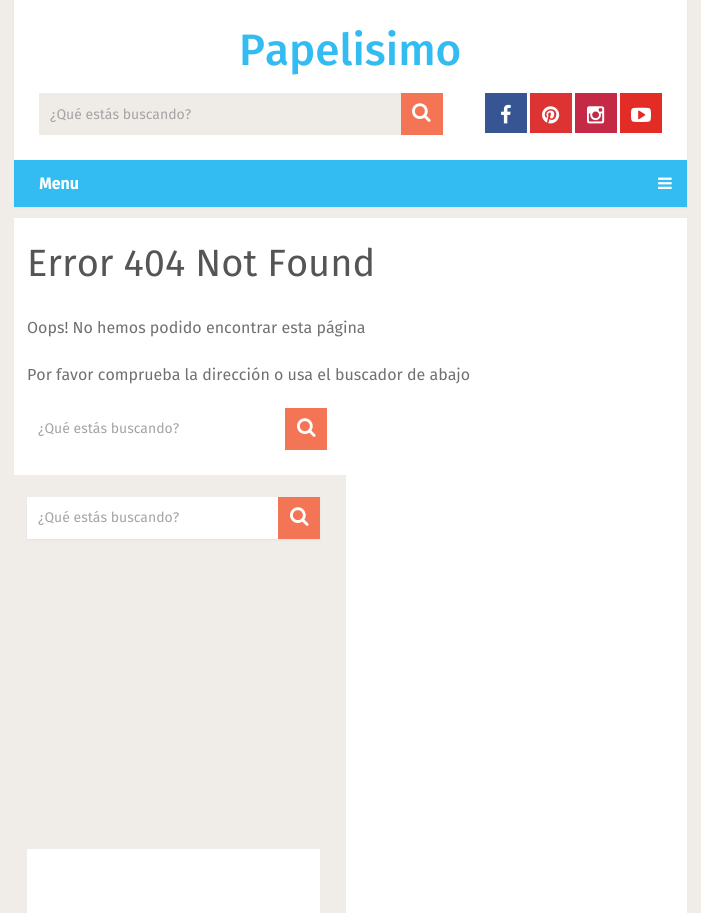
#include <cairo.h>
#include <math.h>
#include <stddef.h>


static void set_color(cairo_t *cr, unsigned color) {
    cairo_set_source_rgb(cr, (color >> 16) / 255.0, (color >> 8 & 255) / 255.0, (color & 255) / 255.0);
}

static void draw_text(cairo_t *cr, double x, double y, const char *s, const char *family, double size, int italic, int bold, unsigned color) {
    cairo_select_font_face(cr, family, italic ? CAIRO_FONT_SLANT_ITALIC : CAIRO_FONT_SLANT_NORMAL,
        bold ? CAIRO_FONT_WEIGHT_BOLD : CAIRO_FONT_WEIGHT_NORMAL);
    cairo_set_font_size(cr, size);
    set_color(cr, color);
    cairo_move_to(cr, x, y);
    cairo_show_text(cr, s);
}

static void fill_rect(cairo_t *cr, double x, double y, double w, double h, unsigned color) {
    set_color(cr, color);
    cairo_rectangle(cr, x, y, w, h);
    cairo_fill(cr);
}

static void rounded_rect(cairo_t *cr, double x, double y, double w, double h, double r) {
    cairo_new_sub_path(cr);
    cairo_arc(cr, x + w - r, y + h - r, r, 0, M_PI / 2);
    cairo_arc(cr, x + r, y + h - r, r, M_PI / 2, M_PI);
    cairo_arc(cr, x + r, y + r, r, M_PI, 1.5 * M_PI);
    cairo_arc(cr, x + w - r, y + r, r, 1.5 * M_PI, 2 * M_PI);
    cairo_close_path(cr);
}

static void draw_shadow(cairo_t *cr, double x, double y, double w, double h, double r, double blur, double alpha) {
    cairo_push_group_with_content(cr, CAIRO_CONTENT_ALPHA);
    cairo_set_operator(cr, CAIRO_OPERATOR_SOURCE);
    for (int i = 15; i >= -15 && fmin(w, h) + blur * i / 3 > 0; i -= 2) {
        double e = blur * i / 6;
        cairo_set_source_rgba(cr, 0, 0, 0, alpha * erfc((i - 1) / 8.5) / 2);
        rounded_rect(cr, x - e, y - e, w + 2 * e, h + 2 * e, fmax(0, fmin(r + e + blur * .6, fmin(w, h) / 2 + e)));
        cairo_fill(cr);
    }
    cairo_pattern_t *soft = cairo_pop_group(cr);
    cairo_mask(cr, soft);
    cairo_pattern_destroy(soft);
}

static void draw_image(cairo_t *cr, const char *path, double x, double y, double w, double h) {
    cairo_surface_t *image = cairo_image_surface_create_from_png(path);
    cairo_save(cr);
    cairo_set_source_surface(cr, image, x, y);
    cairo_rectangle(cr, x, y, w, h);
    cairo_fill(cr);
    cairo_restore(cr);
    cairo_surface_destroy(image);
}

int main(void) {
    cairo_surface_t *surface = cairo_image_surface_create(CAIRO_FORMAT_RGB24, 701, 913);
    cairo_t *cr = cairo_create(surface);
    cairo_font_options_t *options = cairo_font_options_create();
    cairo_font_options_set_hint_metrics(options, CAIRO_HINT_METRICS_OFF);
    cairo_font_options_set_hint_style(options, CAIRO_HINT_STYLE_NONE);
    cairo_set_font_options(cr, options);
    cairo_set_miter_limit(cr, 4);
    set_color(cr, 0xF0EDE9);
    cairo_paint(cr);
    set_color(cr, 0x000000);
    draw_shadow(cr, 14, 1, 673, 207, 0, 1, 0.05);
    fill_rect(cr, 14, 0, 673, 160, 0xFFFFFF);
    draw_text(cr, 239, 65, "Papelisimo", "Fira Sans Medium", 44, 0, 0, 0x33BCF2);
    fill_rect(cr, 39, 93, 362, 42, 0xEFEBE7);
    draw_text(cr, 50, 119, "¿Qué estás buscando?", "Fira Sans", 14, 0, 0, 0xA4A4A4);
    fill_rect(cr, 401, 93, 42, 42, 0xF47555);
    draw_image(cr, "assets/img1.png", 412, 103, 19, 19);
    fill_rect(cr, 485, 93, 42, 40, 0x375593);
    draw_image(cr, "assets/img2.png", 501, 104, 10, 20);
    fill_rect(cr, 530, 93, 42, 40, 0xDD3333);
    draw_image(cr, "assets/img3.png", 542, 106, 18, 18);
    fill_rect(cr, 575, 93, 42, 40, 0xC42945);
    draw_image(cr, "assets/img4.png", 587, 106, 18, 18);
    fill_rect(cr, 620, 93, 42, 40, 0xE32C26);
    draw_image(cr, "assets/img5.png", 631, 107, 20, 15);
    fill_rect(cr, 14, 160, 673, 47, 0x33BCF2);
    draw_text(cr, 39, 189, "Menu", "Fira Sans", 16, 0, 1, 0xFFFFFF);
    draw_image(cr, "assets/img6.png", 658, 177, 14, 12);
    fill_rect(cr, 14, 218, 673, 695, 0xFFFFFF);
    draw_text(cr, 27, 276, "Error 404 Not Found", "Fira Sans", 38, 0, 0, 0x555555);
    draw_text(cr, 27, 333, "Oops! No hemos podido encontrar esta página", "Fira Sans", 16, 0, 0, 0x707070);
    draw_text(cr, 27, 380, "Por favor comprueba la dirección o usa el buscador de abajo", "Fira Sans", 16, 0, 0, 0x707070);
    draw_text(cr, 38, 433, "¿Qué estás buscando?", "Fira Sans", 14, 0, 0, 0xA4A4A4);
    fill_rect(cr, 285, 408, 42, 42, 0xF47555);
    draw_image(cr, "assets/img1.png", 297, 418, 19, 19);
    fill_rect(cr, 14, 475, 332, 438, 0xF0EDE9);
    set_color(cr, 0x000000);
    draw_shadow(cr, 27, 498, 293, 42, 0, 1, 0.05);
    fill_rect(cr, 27, 497, 251, 42, 0xFFFFFF);
    draw_text(cr, 38, 522, "¿Qué estás buscando?", "Fira Sans", 14, 0, 0, 0xA4A4A4);
    fill_rect(cr, 278, 497, 42, 42, 0xF47555);
    draw_image(cr, "assets/img1.png", 290, 507, 19, 19);
    fill_rect(cr, 27, 849, 293, 64, 0xFFFFFF);
    cairo_surface_write_to_png(surface, "output.png");
    cairo_font_options_destroy(options);
    cairo_destroy(cr);
    cairo_surface_destroy(surface);
    return 0;
}
